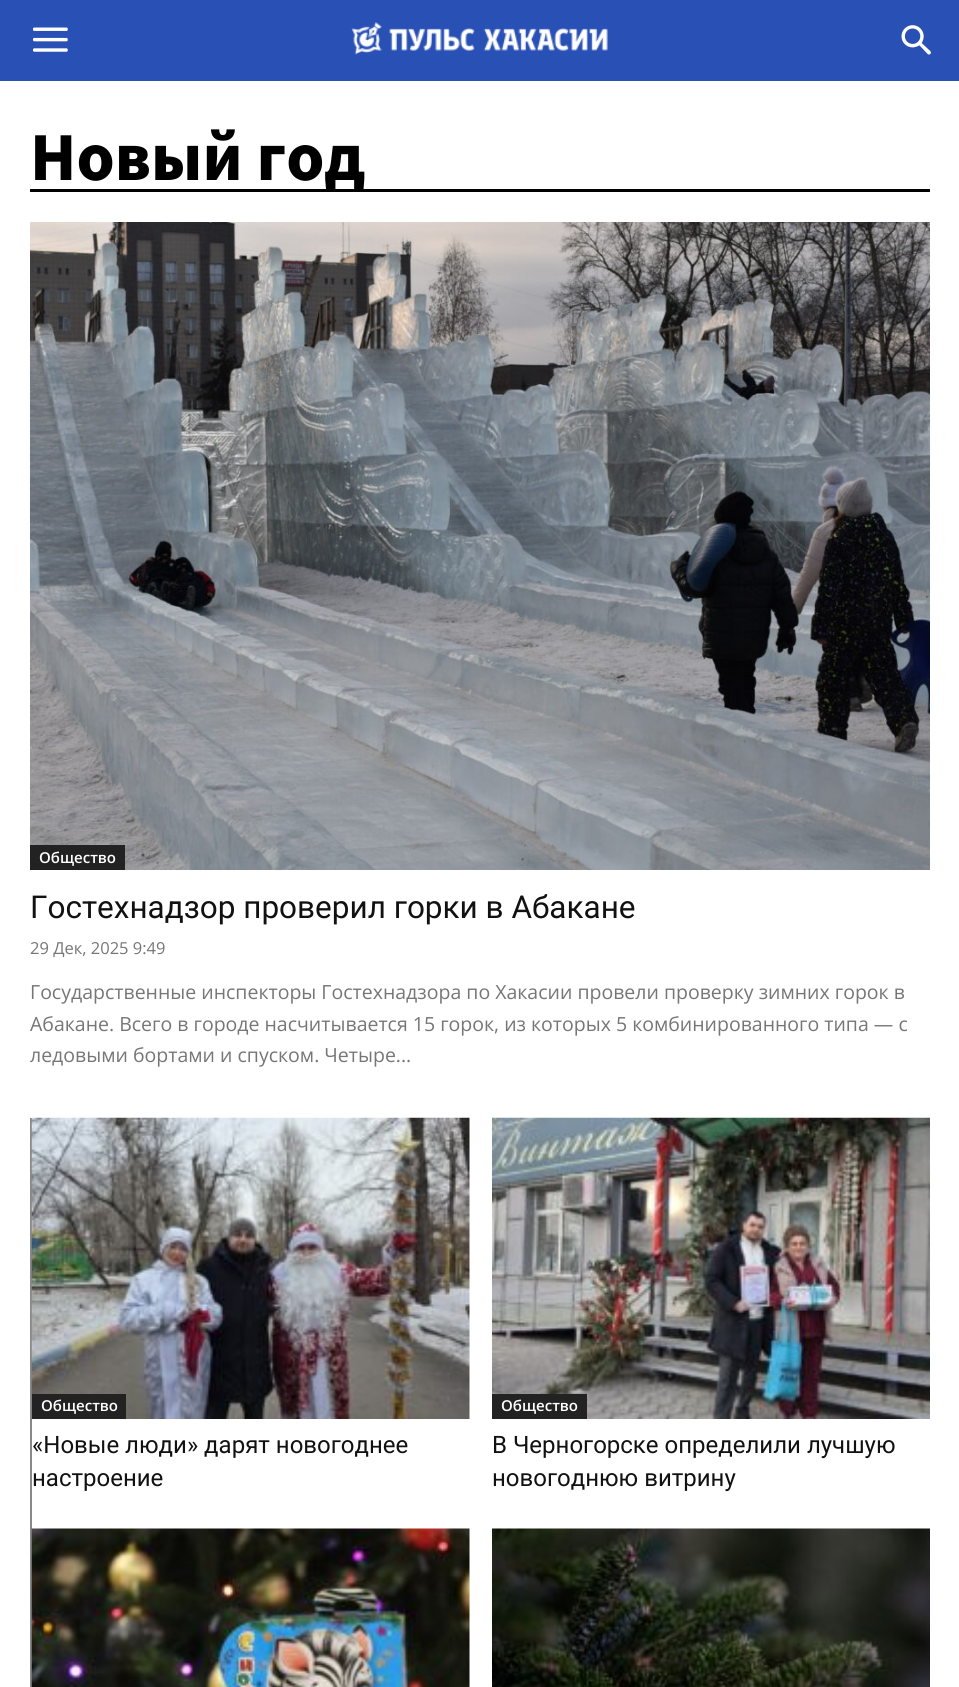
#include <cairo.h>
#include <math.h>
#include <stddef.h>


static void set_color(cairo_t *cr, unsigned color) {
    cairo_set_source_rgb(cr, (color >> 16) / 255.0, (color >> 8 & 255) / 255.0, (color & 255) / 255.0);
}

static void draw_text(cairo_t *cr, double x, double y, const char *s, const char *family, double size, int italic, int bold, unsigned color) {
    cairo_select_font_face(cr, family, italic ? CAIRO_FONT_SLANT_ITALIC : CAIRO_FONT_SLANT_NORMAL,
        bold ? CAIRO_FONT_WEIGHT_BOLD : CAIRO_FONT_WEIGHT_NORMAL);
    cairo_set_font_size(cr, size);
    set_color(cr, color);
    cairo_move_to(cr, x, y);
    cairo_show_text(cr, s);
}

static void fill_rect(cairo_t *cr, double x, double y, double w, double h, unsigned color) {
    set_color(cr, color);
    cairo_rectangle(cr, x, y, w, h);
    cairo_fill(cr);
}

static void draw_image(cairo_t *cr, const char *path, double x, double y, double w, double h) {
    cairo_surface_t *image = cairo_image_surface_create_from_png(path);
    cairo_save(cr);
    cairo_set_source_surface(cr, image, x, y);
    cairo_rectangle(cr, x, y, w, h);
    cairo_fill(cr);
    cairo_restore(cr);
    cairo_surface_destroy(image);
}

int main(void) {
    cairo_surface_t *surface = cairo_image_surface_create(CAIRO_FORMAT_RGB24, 959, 1687);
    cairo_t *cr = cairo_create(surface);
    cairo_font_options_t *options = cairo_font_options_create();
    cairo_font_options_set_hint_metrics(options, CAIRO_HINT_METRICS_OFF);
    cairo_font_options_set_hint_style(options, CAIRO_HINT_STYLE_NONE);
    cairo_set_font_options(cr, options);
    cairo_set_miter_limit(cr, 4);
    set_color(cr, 0xFFFFFF);
    cairo_paint(cr);
    fill_rect(cr, 0, 0, 959, 81, 0x2950B5);
    draw_image(cr, "assets/img1.png", 33, 27, 35, 25);
    draw_image(cr, "assets/img2.png", 351, 22, 257, 33);
    draw_image(cr, "assets/img3.png", 901, 25, 30, 30);
    fill_rect(cr, 30, 189, 900, 3, 0x000000);
    draw_text(cr, 30, 180, "Новый год", "Noto Sans JP Black", 60, 0, 0, 0x000000);
    draw_image(cr, "assets/img4.png", 30, 222, 900, 648);
    fill_rect(cr, 30, 845, 95, 25, 0x222222);
    draw_text(cr, 39, 863, "Общество", "Open Sans SemiBold", 15, 0, 0, 0xFFFFFF);
    draw_text(cr, 30, 918, "Гостехнадзор проверил горки в Абакане", "Roboto", 31.5, 0, 0, 0x111111);
    draw_text(cr, 30, 954, "29 Дек, 2025 9:49", "Open Sans", 16.5, 0, 0, 0x767676);
    draw_text(cr, 30, 999, "Государственные инспекторы Гостехнадзора по Хакасии провели проверку зимних горок в", "Open Sans", 19.5, 0, 0, 0x767676);
    draw_text(cr, 30, 1031, "Абакане. Всего в городе насчитывается 15 горок, из которых 5 комбинированного типа — с", "Open Sans", 19.5, 0, 0, 0x767676);
    draw_text(cr, 30, 1062, "ледовыми бортами и спуском. Четыре...", "Open Sans", 19.5, 0, 0, 0x767676);
    fill_rect(cr, 30, 1118, 2, 569, 0x888888);
    draw_image(cr, "assets/img5.png", 31, 1117, 439, 302);
    fill_rect(cr, 32, 1394, 94, 25, 0x222222);
    draw_text(cr, 41, 1411, "Общество", "Open Sans SemiBold", 15, 0, 0, 0xFFFFFF);
    draw_text(cr, 32, 1453, "«Новые люди» дарят новогоднее", "Roboto", 24, 0, 0, 0x111111);
    draw_text(cr, 32, 1486, "настроение", "Roboto", 24, 0, 0, 0x111111);
    draw_image(cr, "assets/img6.png", 492, 1117, 438, 302);
    fill_rect(cr, 492, 1394, 95, 25, 0x222222);
    draw_text(cr, 501, 1411, "Общество", "Open Sans SemiBold", 15, 0, 0, 0xFFFFFF);
    draw_text(cr, 492, 1453, "В Черногорске определили лучшую", "Roboto", 24, 0, 0, 0x111111);
    draw_text(cr, 492, 1486, "новогоднюю витрину", "Roboto", 24, 0, 0, 0x111111);
    draw_image(cr, "assets/img7.png", 31, 1528, 439, 159);
    draw_image(cr, "assets/img8.png", 492, 1528, 438, 159);
    cairo_surface_write_to_png(surface, "output.png");
    cairo_font_options_destroy(options);
    cairo_destroy(cr);
    cairo_surface_destroy(surface);
    return 0;
}
